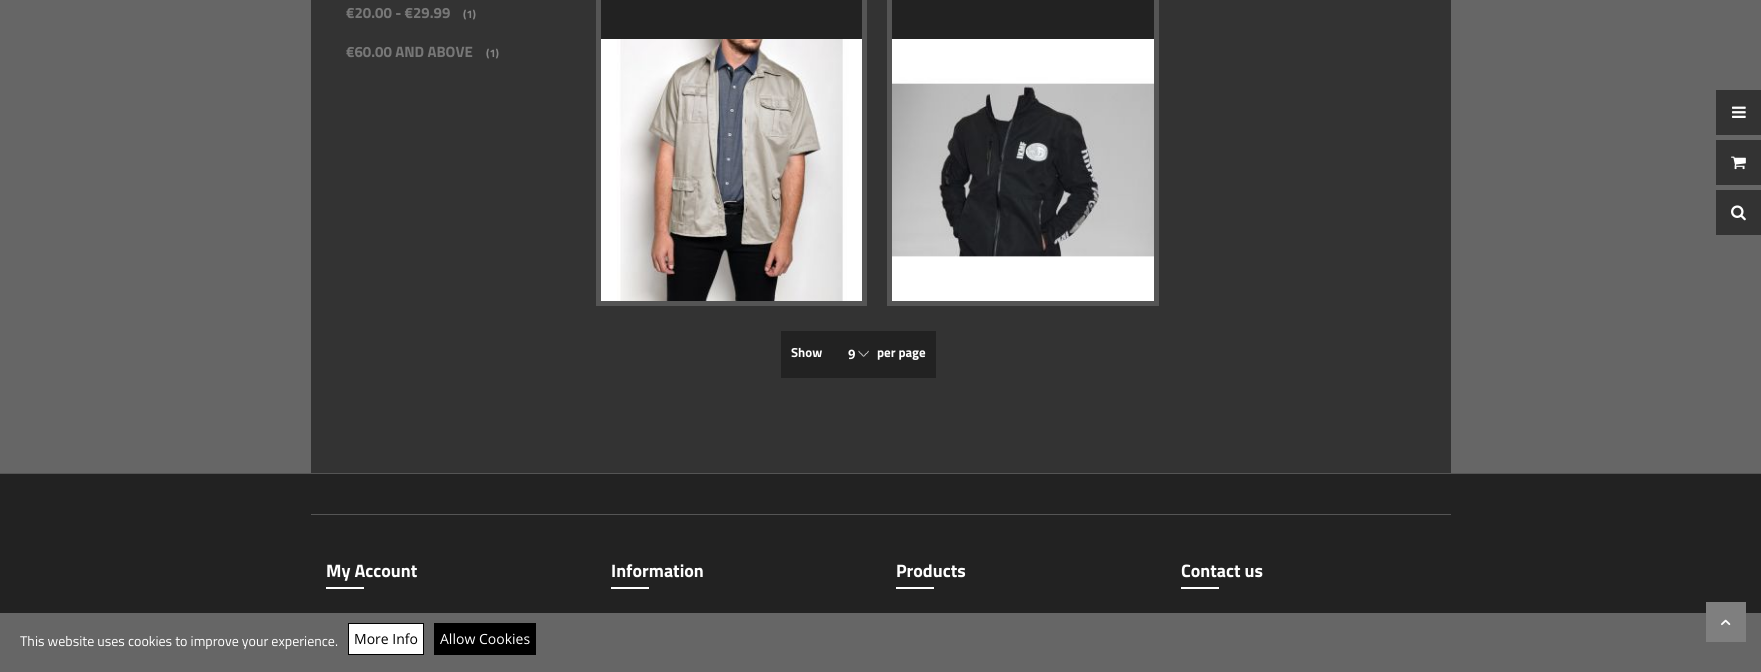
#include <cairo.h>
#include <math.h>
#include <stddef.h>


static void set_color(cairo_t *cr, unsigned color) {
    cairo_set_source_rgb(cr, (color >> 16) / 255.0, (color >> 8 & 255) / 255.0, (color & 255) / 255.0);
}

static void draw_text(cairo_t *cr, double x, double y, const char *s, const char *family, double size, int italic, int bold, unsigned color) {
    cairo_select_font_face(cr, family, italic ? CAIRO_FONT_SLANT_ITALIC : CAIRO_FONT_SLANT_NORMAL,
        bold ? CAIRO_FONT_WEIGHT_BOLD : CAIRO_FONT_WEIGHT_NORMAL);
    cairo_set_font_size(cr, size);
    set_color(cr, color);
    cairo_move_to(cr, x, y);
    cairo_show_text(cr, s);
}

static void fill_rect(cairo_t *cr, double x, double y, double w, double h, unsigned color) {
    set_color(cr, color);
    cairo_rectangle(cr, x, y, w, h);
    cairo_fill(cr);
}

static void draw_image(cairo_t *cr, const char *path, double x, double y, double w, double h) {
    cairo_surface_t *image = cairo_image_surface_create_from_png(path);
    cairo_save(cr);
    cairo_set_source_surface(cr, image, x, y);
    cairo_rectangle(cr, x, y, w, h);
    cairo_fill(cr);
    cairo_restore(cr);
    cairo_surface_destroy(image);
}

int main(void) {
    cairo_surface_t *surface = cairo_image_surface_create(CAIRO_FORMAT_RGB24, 1761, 672);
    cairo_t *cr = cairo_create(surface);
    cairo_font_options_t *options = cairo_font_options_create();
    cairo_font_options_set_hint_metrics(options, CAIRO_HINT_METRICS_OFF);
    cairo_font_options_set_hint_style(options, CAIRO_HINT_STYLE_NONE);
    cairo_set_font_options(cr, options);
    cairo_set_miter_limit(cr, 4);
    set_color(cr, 0x666666);
    cairo_paint(cr);
    fill_rect(cr, 311, 0, 1140, 473, 0x333333);
    draw_text(cr, 346, 18, "€20.00 - €29.99", "Titillium Web", 15, 0, 1, 0x777777);
    draw_text(cr, 463, 18, "(1)", "Titillium Web", 11, 0, 1, 0x858585);
    draw_text(cr, 346, 57, "€60.00 AND ABOVE", "Titillium Web", 15, 0, 1, 0x777777);
    draw_text(cr, 486, 57, "(1)", "Titillium Web", 11, 0, 1, 0x858585);
    fill_rect(cr, 601, 0, 261, 39, 0x222222);
    cairo_rectangle(cr, 598.5, -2.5, 266, 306);
    set_color(cr, 0x555555);
    cairo_set_line_width(cr, 5);
    cairo_stroke(cr);
    draw_image(cr, "assets/img1.png", 601, 39, 261, 262);
    fill_rect(cr, 892, 0, 262, 39, 0x222222);
    cairo_rectangle(cr, 889.5, -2.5, 267, 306);
    set_color(cr, 0x555555);
    cairo_stroke(cr);
    draw_image(cr, "assets/img2.png", 892, 39, 262, 262);
    fill_rect(cr, 781, 331, 155, 47, 0x222222);
    draw_text(cr, 791, 357, "Show", "Titillium Web", 13, 0, 1, 0xFFFFFF);
    draw_image(cr, "assets/img3.png", 858, 350, 11, 7);
    draw_text(cr, 848, 359, "9", "Open Sans", 13, 0, 1, 0xFFFFFF);
    draw_text(cr, 877, 357, "per page", "Titillium Web", 13, 0, 1, 0xFFFFFF);
    fill_rect(cr, 1716, 90, 45, 45, 0x333333);
    draw_image(cr, "assets/img4.png", 1732, 106, 14, 12);
    fill_rect(cr, 1716, 140, 45, 45, 0x333333);
    draw_image(cr, "assets/img5.png", 1731, 156, 15, 14);
    fill_rect(cr, 1716, 190, 45, 45, 0x333333);
    draw_image(cr, "assets/img6.png", 1731, 205, 15, 16);
    fill_rect(cr, 0, 474, 1761, 139, 0x222222);
    fill_rect(cr, 0, 473, 1761, 1, 0x555555);
    fill_rect(cr, 311, 514, 1140, 1, 0x555555);
    draw_text(cr, 326, 577, "My Account", "Titillium Web", 18, 0, 1, 0xFFFFFF);
    fill_rect(cr, 326, 587, 38, 2, 0xFFFFFF);
    draw_text(cr, 611, 577, "Information", "Titillium Web", 18, 0, 1, 0xFFFFFF);
    fill_rect(cr, 611, 587, 38, 2, 0xFFFFFF);
    draw_text(cr, 896, 577, "Products", "Titillium Web", 18, 0, 1, 0xFFFFFF);
    fill_rect(cr, 896, 587, 38, 2, 0xFFFFFF);
    draw_text(cr, 1181, 577, "Contact us", "Titillium Web", 18, 0, 1, 0xFFFFFF);
    fill_rect(cr, 1181, 587, 38, 2, 0xFFFFFF);
    fill_rect(cr, 1706, 602, 40, 40, 0x7F7F7F);
    draw_image(cr, "assets/img7.png", 1721, 619, 10, 7);
    draw_text(cr, 20, 646, "This website uses cookies to improve your experience.", "Titillium Web", 14, 0, 0, 0xFFFFFF);
    cairo_rectangle(cr, 348.5, 623.5, 75, 31);
    cairo_fill_preserve(cr);
    set_color(cr, 0x000000);
    cairo_set_line_width(cr, 1);
    cairo_stroke(cr);
    draw_text(cr, 354, 644, "More Info", "Open Sans", 14, 0, 0, 0x000000);
    fill_rect(cr, 434, 623, 102, 32, 0x000000);
    draw_text(cr, 440, 644, "Allow Cookies", "Open Sans", 14, 0, 0, 0xFFFFFF);
    cairo_surface_write_to_png(surface, "output.png");
    cairo_font_options_destroy(options);
    cairo_destroy(cr);
    cairo_surface_destroy(surface);
    return 0;
}
